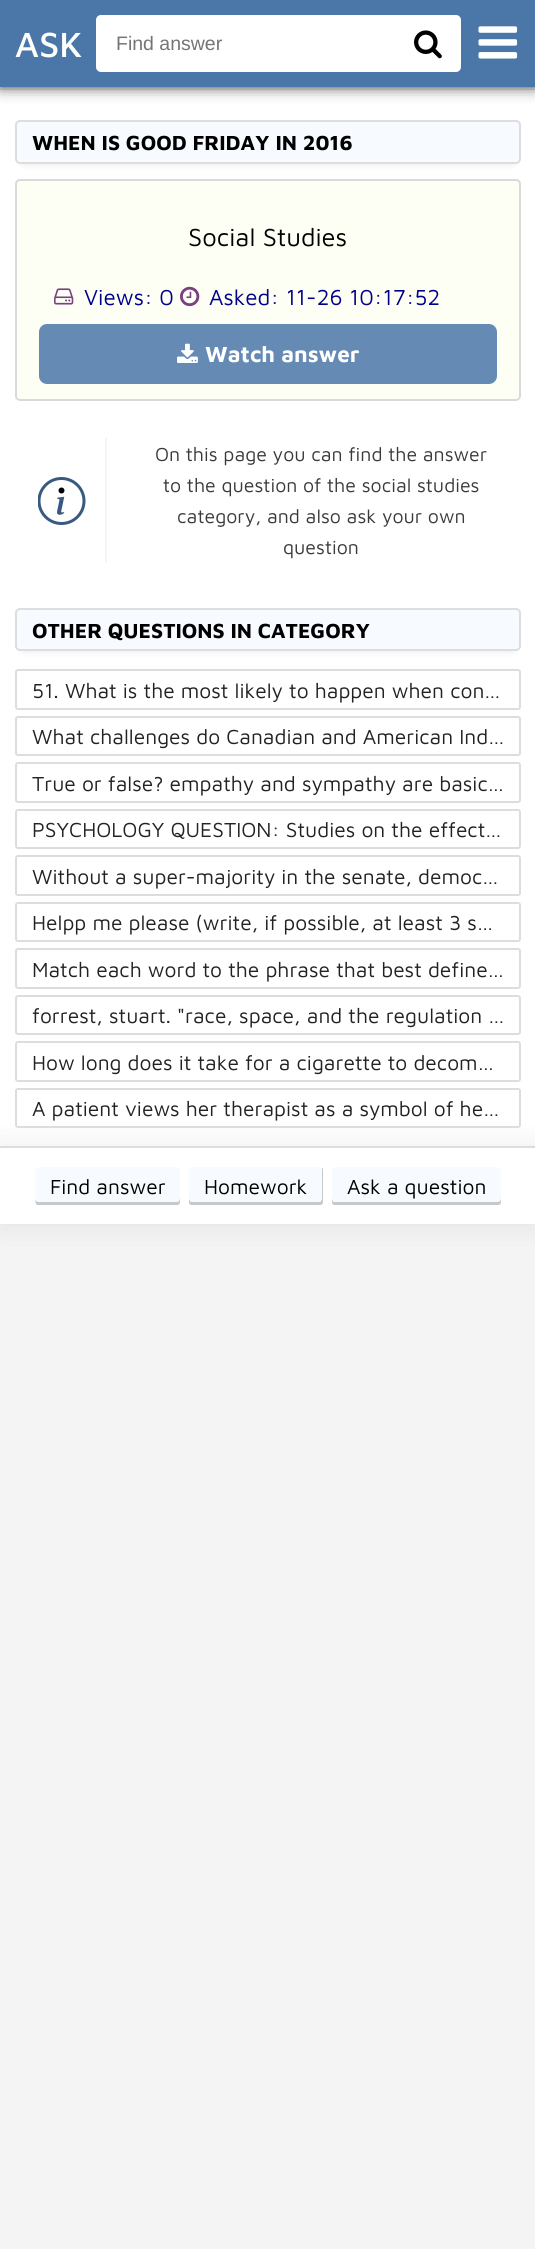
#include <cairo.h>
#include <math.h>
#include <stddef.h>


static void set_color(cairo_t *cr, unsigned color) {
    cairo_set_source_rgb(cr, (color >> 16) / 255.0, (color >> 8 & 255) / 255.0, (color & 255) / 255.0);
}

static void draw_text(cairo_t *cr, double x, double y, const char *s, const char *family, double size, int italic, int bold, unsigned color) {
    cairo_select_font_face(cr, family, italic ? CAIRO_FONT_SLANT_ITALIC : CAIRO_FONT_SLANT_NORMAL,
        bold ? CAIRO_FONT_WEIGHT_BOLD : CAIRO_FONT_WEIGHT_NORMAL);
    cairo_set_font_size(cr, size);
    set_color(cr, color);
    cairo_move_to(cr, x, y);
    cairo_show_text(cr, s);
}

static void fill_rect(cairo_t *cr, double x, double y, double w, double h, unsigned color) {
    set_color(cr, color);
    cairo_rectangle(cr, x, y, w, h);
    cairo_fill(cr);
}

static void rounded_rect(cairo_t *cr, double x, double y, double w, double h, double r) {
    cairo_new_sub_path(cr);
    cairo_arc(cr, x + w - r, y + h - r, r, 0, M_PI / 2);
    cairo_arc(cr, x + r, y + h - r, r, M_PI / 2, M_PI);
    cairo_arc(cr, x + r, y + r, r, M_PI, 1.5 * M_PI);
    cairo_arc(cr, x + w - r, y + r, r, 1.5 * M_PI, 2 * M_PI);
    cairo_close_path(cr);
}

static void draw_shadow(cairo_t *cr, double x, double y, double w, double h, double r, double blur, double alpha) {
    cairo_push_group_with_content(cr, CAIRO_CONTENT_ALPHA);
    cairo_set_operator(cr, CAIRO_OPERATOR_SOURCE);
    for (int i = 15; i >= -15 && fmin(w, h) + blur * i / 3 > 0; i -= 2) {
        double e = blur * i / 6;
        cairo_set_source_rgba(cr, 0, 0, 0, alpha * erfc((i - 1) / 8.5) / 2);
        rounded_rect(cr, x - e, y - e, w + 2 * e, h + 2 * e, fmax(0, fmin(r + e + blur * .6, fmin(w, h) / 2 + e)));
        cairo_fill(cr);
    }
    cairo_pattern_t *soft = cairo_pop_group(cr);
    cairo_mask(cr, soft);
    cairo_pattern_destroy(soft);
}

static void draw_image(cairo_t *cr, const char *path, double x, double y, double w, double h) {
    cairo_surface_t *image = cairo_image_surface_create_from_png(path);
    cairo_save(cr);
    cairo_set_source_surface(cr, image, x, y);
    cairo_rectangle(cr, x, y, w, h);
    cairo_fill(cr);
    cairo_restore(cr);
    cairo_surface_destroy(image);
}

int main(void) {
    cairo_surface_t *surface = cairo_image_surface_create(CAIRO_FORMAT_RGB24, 535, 2249);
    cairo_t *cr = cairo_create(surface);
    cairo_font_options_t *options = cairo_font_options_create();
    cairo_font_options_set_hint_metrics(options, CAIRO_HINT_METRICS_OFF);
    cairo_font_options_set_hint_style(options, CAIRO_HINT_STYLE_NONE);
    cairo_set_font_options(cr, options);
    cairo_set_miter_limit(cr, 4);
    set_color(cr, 0xF5F4F4);
    cairo_paint(cr);
    set_color(cr, 0x000000);
    draw_shadow(cr, 0, 90, 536, 1056, 0, 15, 0.08);
    fill_rect(cr, 0, 90, 535, 1056, 0xFFFFFF);
    set_color(cr, 0x000000);
    draw_shadow(cr, 0, 0, 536, 87, 0, 7.5, 0.7);
    fill_rect(cr, 0, 0, 535, 87, 0x4A76A8);
    draw_text(cr, 15, 57, "ASK", "Maven Pro Medium", 36, 0, 0, 0xFFFFFF);
    rounded_rect(cr, 96, 15, 365, 57, 5);
    cairo_fill(cr);
    draw_text(cr, 116, 50, "Find answer", "Liberation Sans", 19.5, 0, 0, 0x757575);
    draw_image(cr, "assets/img1.png", 414, 30, 28, 29);
    draw_image(cr, "assets/img2.png", 478, 26, 40, 33);
    set_color(cr, 0x000000);
    draw_shadow(cr, 23, 135, 490, 29, 0, 4, 0.1);
    set_color(cr, 0xF7FBFF);
    rounded_rect(cr, 16, 121, 504, 42, 4);
    cairo_fill_preserve(cr);
    set_color(cr, 0xDDDDDD);
    cairo_stroke(cr);
    draw_text(cr, 32, 150, "WHEN IS GOOD FRIDAY IN 2016", "Maven Pro", 21, 0, 1, 0x000000);
    set_color(cr, 0xFDFFF5);
    rounded_rect(cr, 16, 180, 504, 220, 4);
    cairo_fill_preserve(cr);
    set_color(cr, 0xDADADA);
    cairo_stroke(cr);
    draw_text(cr, 188, 246, "Social Studies", "Maven Pro", 25.5, 0, 0, 0x000000);
    draw_image(cr, "assets/img3.png", 54, 288, 20, 17);
    draw_text(cr, 84, 305, "Views: 0", "Maven Pro", 22.5, 0, 0, 0x00008B);
    draw_image(cr, "assets/img4.png", 180, 286, 20, 21);
    draw_text(cr, 209, 305, "Asked: 11-26 10:17:52", "Maven Pro", 22.5, 0, 0, 0x00008B);
    set_color(cr, 0x658BB4);
    rounded_rect(cr, 39, 324, 458, 60, 8);
    cairo_fill(cr);
    draw_image(cr, "assets/img5.png", 177, 343, 21, 20);
    draw_text(cr, 205, 362, "Watch answer", "Maven Pro", 22.5, 0, 1, 0xFFFFFF);
    draw_image(cr, "assets/img6.png", 38, 477, 48, 48);
    fill_rect(cr, 105, 438, 2, 125, 0xF5F5F5);
    draw_text(cr, 155, 461, "On this page you can find the answer", "Maven Pro", 19.5, 0, 0, 0x3A3A3A);
    draw_text(cr, 163, 492, "to the question of the social studies", "Maven Pro", 19.5, 0, 0, 0x3A3A3A);
    draw_text(cr, 177, 523, "category, and also ask your own", "Maven Pro", 19.5, 0, 0, 0x3A3A3A);
    draw_text(cr, 283, 554, "question", "Maven Pro", 19.5, 0, 0, 0x3A3A3A);
    set_color(cr, 0x000000);
    draw_shadow(cr, 23, 623, 490, 28, 0, 4, 0.1);
    set_color(cr, 0xF7FBFF);
    rounded_rect(cr, 16, 609, 504, 41, 4);
    cairo_fill_preserve(cr);
    set_color(cr, 0xDDDDDD);
    cairo_stroke(cr);
    draw_text(cr, 32, 638, "OTHER QUESTIONS IN CATEGORY", "Maven Pro", 21, 0, 1, 0x000000);
    rounded_rect(cr, 16, 670, 504, 39, 2);
    set_color(cr, 0xDDDDDD);
    cairo_stroke(cr);
    draw_text(cr, 32, 698, "51. What is the most likely to happen when con…", "Maven Pro", 21, 0, 0, 0x222222);
    rounded_rect(cr, 16, 717, 504, 38, 2);
    set_color(cr, 0xDDDDDD);
    cairo_stroke(cr);
    draw_text(cr, 32, 744, "What challenges do Canadian and American Ind…", "Maven Pro", 21, 0, 0, 0x222222);
    rounded_rect(cr, 16, 763, 504, 39, 2);
    set_color(cr, 0xDDDDDD);
    cairo_stroke(cr);
    draw_text(cr, 32, 791, "True or false? empathy and sympathy are basic…", "Maven Pro", 21, 0, 0, 0x222222);
    rounded_rect(cr, 16, 810, 504, 38, 2);
    set_color(cr, 0xDDDDDD);
    cairo_stroke(cr);
    draw_text(cr, 32, 837, "PSYCHOLOGY QUESTION: Studies on the effect…", "Maven Pro", 21, 0, 0, 0x222222);
    rounded_rect(cr, 16, 856, 504, 39, 2);
    set_color(cr, 0xDDDDDD);
    cairo_stroke(cr);
    draw_text(cr, 32, 884, "Without a super-majority in the senate, democ…", "Maven Pro", 21, 0, 0, 0x222222);
    rounded_rect(cr, 16, 903, 504, 38, 2);
    set_color(cr, 0xDDDDDD);
    cairo_stroke(cr);
    draw_text(cr, 32, 930, "Helpp me please (write, if possible, at least 3 s…", "Maven Pro", 21, 0, 0, 0x222222);
    rounded_rect(cr, 16, 949, 504, 39, 2);
    set_color(cr, 0xDDDDDD);
    cairo_stroke(cr);
    draw_text(cr, 32, 977, "Match each word to the phrase that best define…", "Maven Pro", 21, 0, 0, 0x222222);
    rounded_rect(cr, 16, 996, 504, 38, 2);
    set_color(cr, 0xDDDDDD);
    cairo_stroke(cr);
    draw_text(cr, 32, 1023, "forrest, stuart. \"race, space, and the regulation …", "Maven Pro", 21, 0, 0, 0x222222);
    rounded_rect(cr, 16, 1042, 504, 39, 2);
    set_color(cr, 0xDDDDDD);
    cairo_stroke(cr);
    draw_text(cr, 32, 1070, "How long does it take for a cigarette to decom…", "Maven Pro", 21, 0, 0, 0x222222);
    set_color(cr, 0x000000);
    draw_shadow(cr, 0, 1146, 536, 78, 0, 15, 0.08);
    rounded_rect(cr, 16, 1089, 504, 38, 2);
    set_color(cr, 0xDDDDDD);
    cairo_stroke(cr);
    draw_text(cr, 32, 1116, "A patient views her therapist as a symbol of he…", "Maven Pro", 21, 0, 0, 0x222222);
    fill_rect(cr, 0, 1148, 535, 76, 0xFFFFFF);
    fill_rect(cr, 0, 1146, 535, 2, 0xDDDDDD);
    set_color(cr, 0xF7FBFF);
    rounded_rect(cr, 35, 1167, 145, 38, 3);
    cairo_fill(cr);
    cairo_set_source_rgba(cr, 0, 0, 0, 0.2);
    cairo_new_path(cr);
    cairo_move_to(cr, 35, 1200);
    cairo_line_to(cr, 36, 1204);
    cairo_line_to(cr, 37, 1205);
    cairo_line_to(cr, 177, 1205);
    cairo_curve_to(cr, 181, 1205, 180, 1200, 180, 1198);
    cairo_curve_to(cr, 180, 1200, 179, 1202, 177, 1202);
    cairo_line_to(cr, 38, 1202);
    cairo_curve_to(cr, 37, 1202, 36, 1201, 35, 1200);
    cairo_close_path(cr);
    cairo_fill(cr);
    draw_text(cr, 50, 1194, "Find answer", "Maven Pro", 21, 0, 0, 0x000000);
    set_color(cr, 0xF7FBFF);
    rounded_rect(cr, 189, 1167, 134, 38, 3);
    cairo_fill(cr);
    cairo_set_source_rgba(cr, 0, 0, 0, 0.2);
    cairo_new_path(cr);
    cairo_move_to(cr, 189, 1198);
    cairo_line_to(cr, 189, 1202);
    cairo_curve_to(cr, 189, 1204, 190, 1205, 192, 1205);
    cairo_line_to(cr, 320, 1205);
    cairo_curve_to(cr, 322, 1205, 323, 1204, 323, 1202);
    cairo_line_to(cr, 323, 1170);
    cairo_curve_to(cr, 323, 1169, 323, 1168, 322, 1168);
    cairo_line_to(cr, 322, 1198);
    cairo_curve_to(cr, 322, 1200, 321, 1202, 320, 1202);
    cairo_line_to(cr, 192, 1202);
    cairo_curve_to(cr, 190, 1202, 189, 1200, 189, 1198);
    cairo_close_path(cr);
    cairo_fill(cr);
    draw_text(cr, 204, 1194, "Homework", "Maven Pro", 21, 0, 0, 0x000000);
    set_color(cr, 0xF7FBFF);
    rounded_rect(cr, 332, 1167, 169, 38, 3);
    cairo_fill(cr);
    cairo_set_source_rgba(cr, 0, 0, 0, 0.2);
    cairo_new_path(cr);
    cairo_move_to(cr, 332, 1198);
    cairo_line_to(cr, 332, 1202);
    cairo_curve_to(cr, 332, 1204, 333, 1205, 335, 1205);
    cairo_line_to(cr, 498, 1205);
    cairo_curve_to(cr, 500, 1205, 501, 1204, 501, 1202);
    cairo_line_to(cr, 501, 1198);
    cairo_curve_to(cr, 501, 1200, 500, 1202, 498, 1202);
    cairo_line_to(cr, 334, 1202);
    cairo_curve_to(cr, 333, 1202, 332, 1200, 332, 1198);
    cairo_close_path(cr);
    cairo_fill(cr);
    draw_text(cr, 347, 1194, "Ask a question", "Maven Pro", 21, 0, 0, 0x000000);
    cairo_surface_write_to_png(surface, "output.png");
    cairo_font_options_destroy(options);
    cairo_destroy(cr);
    cairo_surface_destroy(surface);
    return 0;
}
